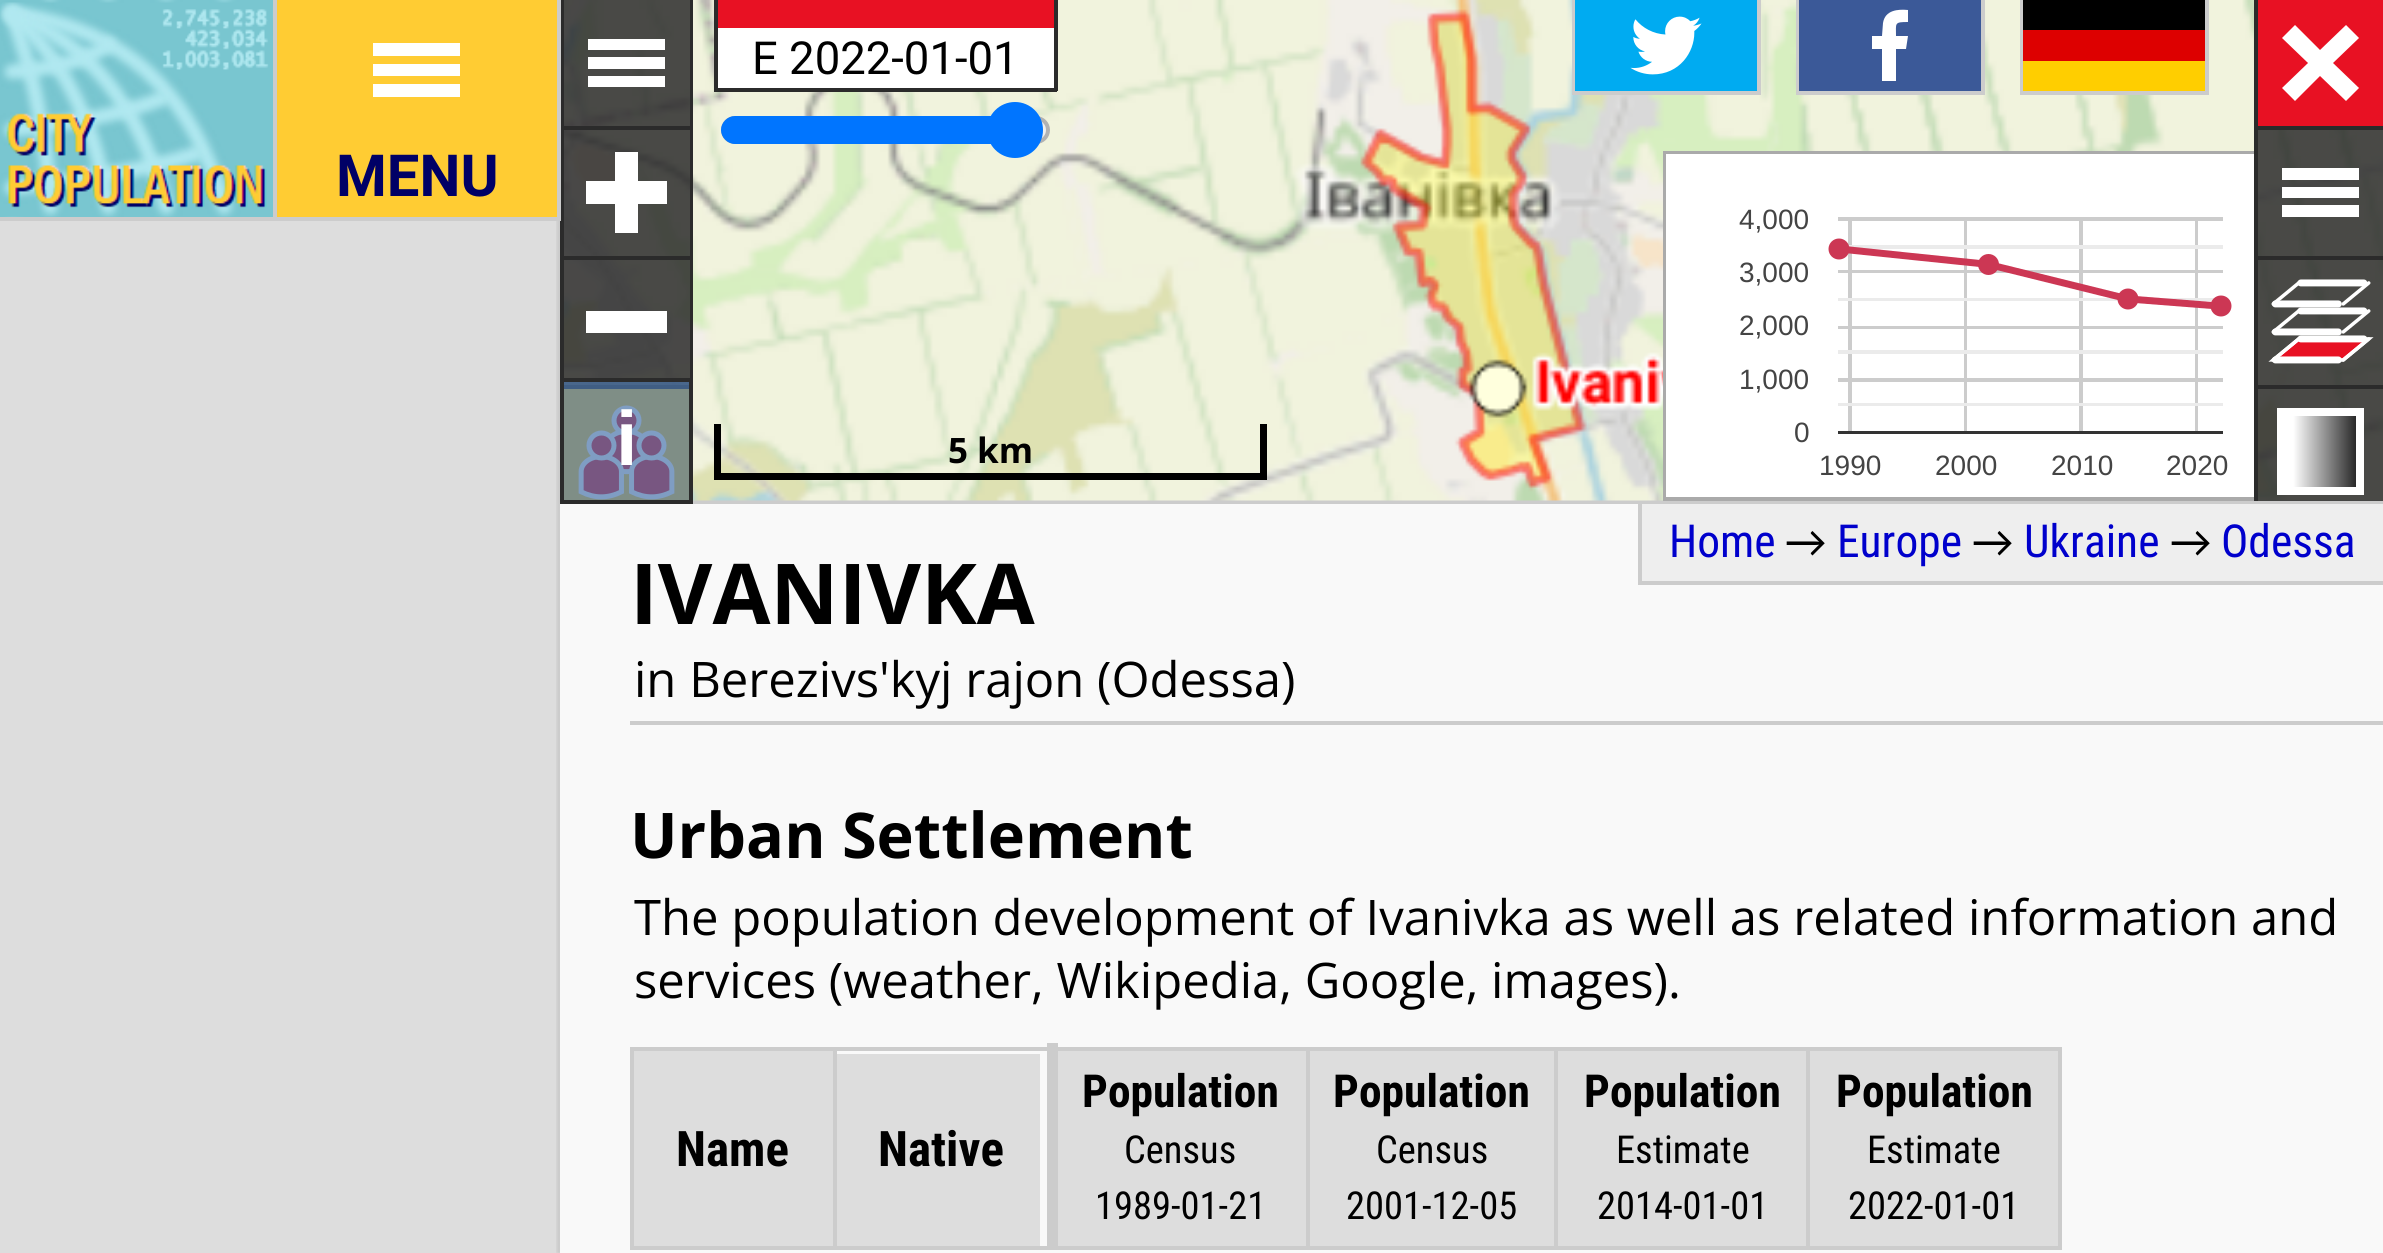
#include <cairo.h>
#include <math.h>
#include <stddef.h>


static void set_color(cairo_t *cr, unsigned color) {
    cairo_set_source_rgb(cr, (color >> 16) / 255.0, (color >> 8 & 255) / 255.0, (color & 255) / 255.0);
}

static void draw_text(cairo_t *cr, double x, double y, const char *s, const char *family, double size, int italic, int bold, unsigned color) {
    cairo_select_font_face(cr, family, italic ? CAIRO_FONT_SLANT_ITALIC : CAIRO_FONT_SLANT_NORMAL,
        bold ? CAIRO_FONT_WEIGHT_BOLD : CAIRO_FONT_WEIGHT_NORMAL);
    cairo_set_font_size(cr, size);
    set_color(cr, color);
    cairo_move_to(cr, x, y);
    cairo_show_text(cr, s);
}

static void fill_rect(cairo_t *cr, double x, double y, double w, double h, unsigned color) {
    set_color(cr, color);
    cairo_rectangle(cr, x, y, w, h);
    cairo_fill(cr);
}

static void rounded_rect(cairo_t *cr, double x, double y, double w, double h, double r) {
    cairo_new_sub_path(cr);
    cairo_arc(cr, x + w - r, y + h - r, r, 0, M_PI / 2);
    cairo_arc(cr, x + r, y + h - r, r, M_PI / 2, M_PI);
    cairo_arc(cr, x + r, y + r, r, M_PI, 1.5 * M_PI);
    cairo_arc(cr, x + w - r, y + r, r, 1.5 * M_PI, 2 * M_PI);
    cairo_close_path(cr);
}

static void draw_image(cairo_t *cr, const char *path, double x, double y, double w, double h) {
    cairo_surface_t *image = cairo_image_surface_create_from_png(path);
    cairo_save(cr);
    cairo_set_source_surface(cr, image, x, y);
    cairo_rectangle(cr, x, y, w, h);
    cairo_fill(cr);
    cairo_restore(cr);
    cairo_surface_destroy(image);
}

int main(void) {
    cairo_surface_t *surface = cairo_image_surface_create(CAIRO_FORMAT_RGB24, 2383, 1253);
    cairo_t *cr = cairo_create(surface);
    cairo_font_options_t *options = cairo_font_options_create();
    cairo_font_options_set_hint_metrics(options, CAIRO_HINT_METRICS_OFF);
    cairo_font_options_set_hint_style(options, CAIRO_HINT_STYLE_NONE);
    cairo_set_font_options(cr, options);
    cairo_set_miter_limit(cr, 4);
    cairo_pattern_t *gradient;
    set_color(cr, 0xF9F9F9);
    cairo_paint(cr);
    cairo_rectangle(cr, 562, -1, 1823, 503);
    set_color(cr, 0xCCCCCC);
    cairo_set_line_width(cr, 4);
    cairo_stroke(cr);
    draw_image(cr, "assets/img5.png", 564, 0, 1819, 501);
    fill_rect(cr, 1757, 0, 4, 95, 0xCCCCCC);
    fill_rect(cr, 1572, 91, 189, 4, 0xCCCCCC);
    fill_rect(cr, 1572, 0, 4, 95, 0xCCCCCC);
    draw_image(cr, "assets/img1.png", 1575, 0, 182, 91);
    fill_rect(cr, 1981, 0, 4, 95, 0xCCCCCC);
    fill_rect(cr, 1796, 91, 189, 4, 0xCCCCCC);
    fill_rect(cr, 1796, 0, 4, 95, 0xCCCCCC);
    fill_rect(cr, 1799, 0, 182, 91, 0x3B5998);
    set_color(cr, 0xFFFFFF);
    cairo_new_path(cr);
    cairo_move_to(cr, 1896, 81);
    cairo_line_to(cr, 1896, 49);
    cairo_line_to(cr, 1906, 49);
    cairo_line_to(cr, 1908, 36);
    cairo_line_to(cr, 1896, 36);
    cairo_curve_to(cr, 1896, 23, 1894, 22, 1908, 22);
    cairo_line_to(cr, 1908, 10);
    cairo_curve_to(cr, 1898, 9, 1885, 10, 1883, 23);
    cairo_line_to(cr, 1882, 36);
    cairo_line_to(cr, 1872, 36);
    cairo_line_to(cr, 1872, 49);
    cairo_line_to(cr, 1882, 49);
    cairo_line_to(cr, 1882, 81);
    cairo_close_path(cr);
    cairo_fill(cr);
    fill_rect(cr, 2205, 0, 4, 95, 0xCCCCCC);
    fill_rect(cr, 2020, 91, 189, 4, 0xCCCCCC);
    fill_rect(cr, 2020, 0, 4, 95, 0xCCCCCC);
    fill_rect(cr, 2023, 0, 182, 30, 0x000000);
    fill_rect(cr, 2023, 30, 182, 31, 0xDD0000);
    fill_rect(cr, 2023, 61, 182, 30, 0xFFCE00);
    draw_image(cr, "assets/img2.png", 0, 0, 273, 217);
    fill_rect(cr, 273, 0, 4, 221, 0xCCCCCC);
    fill_rect(cr, 0, 217, 277, 4, 0xCCCCCC);
    fill_rect(cr, 277, 0, 280, 217, 0xFFCC33);
    cairo_set_source_rgba(cr, 0.169, 0.169, 0.169, 0.4);
    cairo_rectangle(cr, 564, 0, 126, 385);
    cairo_fill(cr);
    fill_rect(cr, 560, 126, 133, 4, 0x2B2B2B);
    fill_rect(cr, 560, 130, 4, 126, 0x2B2B2B);
    fill_rect(cr, 557, 0, 4, 221, 0xCCCCCC);
    fill_rect(cr, 277, 217, 283, 4, 0xCCCCCC);
    fill_rect(cr, 373, 43, 87, 13, 0xFFFFFF);
    fill_rect(cr, 373, 64, 87, 12, 0xFFFFFF);
    fill_rect(cr, 373, 84, 87, 13, 0xFFFFFF);
    draw_text(cr, 336, 196, "MENU", "Roboto", 58, 0, 1, 0x000066);
    cairo_set_source_rgba(cr, 0.169, 0.169, 0.169, 0.75);
    cairo_rectangle(cr, 564, 0, 126, 126);
    cairo_fill(cr);
    fill_rect(cr, 561, 0, 3, 126, 0x2B2B2B);
    fill_rect(cr, 588, 39, 77, 11, 0xFFFFFF);
    fill_rect(cr, 690, 0, 3, 126, 0x2B2B2B);
    fill_rect(cr, 588, 57, 77, 12, 0xFFFFFF);
    fill_rect(cr, 588, 76, 77, 11, 0xFFFFFF);
    cairo_set_source_rgba(cr, 0.169, 0.169, 0.169, 0.75);
    cairo_rectangle(cr, 564, 130, 126, 126);
    cairo_fill(cr);
    fill_rect(cr, 560, 256, 133, 4, 0x2B2B2B);
    fill_rect(cr, 586, 181, 81, 23, 0xFFFFFF);
    fill_rect(cr, 615, 152, 23, 81, 0xFFFFFF);
    fill_rect(cr, 690, 130, 3, 126, 0x2B2B2B);
    cairo_set_source_rgba(cr, 0.169, 0.169, 0.169, 0.75);
    cairo_rectangle(cr, 564, 260, 126, 125);
    cairo_fill(cr);
    fill_rect(cr, 560, 385, 133, 4, 0x2B2B2B);
    fill_rect(cr, 560, 259, 4, 126, 0x2B2B2B);
    fill_rect(cr, 586, 311, 81, 22, 0xFFFFFF);
    fill_rect(cr, 690, 259, 3, 126, 0x2B2B2B);
    fill_rect(cr, 564, 389, 125, 111, 0xFFCC33);
    draw_image(cr, "assets/img3.png", 578, 405, 97, 95);
    fill_rect(cr, 718, 0, 336, 28, 0xE81123);
    fill_rect(cr, 1054, 0, 4, 91, 0x2B2B2B);
    fill_rect(cr, 714, 88, 343, 4, 0x2B2B2B);
    fill_rect(cr, 714, 0, 4, 91, 0x2B2B2B);
    fill_rect(cr, 718, 28, 336, 60, 0xFFFFFF);
    draw_text(cr, 752, 74, "E 2022-01-01", "Roboto", 45.5, 0, 0, 0x000000);
    set_color(cr, 0xEFEFEF);
    rounded_rect(cr, 723, 118, 325, 24, 12);
    cairo_fill_preserve(cr);
    set_color(cr, 0xB2B2B2);
    cairo_stroke(cr);
    set_color(cr, 0x0075FF);
    cairo_new_path(cr);
    cairo_move_to(cr, 735, 116);
    cairo_line_to(cr, 1015, 116);
    cairo_line_to(cr, 1015, 144);
    cairo_line_to(cr, 735, 144);
    cairo_curve_to(cr, 727.5, 144, 721, 137.5, 721, 130);
    cairo_curve_to(cr, 721, 122.5, 727.5, 116, 735, 116);
    cairo_close_path(cr);
    cairo_fill(cr);
    cairo_arc(cr, 1015, 130, 28, 0, 2 * M_PI);
    cairo_fill(cr);
    cairo_set_source_rgba(cr, 0.169, 0.169, 0.169, 0.4);
    cairo_rectangle(cr, 2258, 130, 125, 371);
    cairo_fill(cr);
    fill_rect(cr, 2258, 0, 125, 126, 0xE81123);
    fill_rect(cr, 2254, 126, 129, 4, 0x2B2B2B);
    fill_rect(cr, 2254, 0, 4, 126, 0x2B2B2B);
    set_color(cr, 0xFFFFFF);
    cairo_new_path(cr);
    cairo_move_to(cr, 2295, 25);
    cairo_line_to(cr, 2320, 50);
    cairo_line_to(cr, 2346, 25);
    cairo_line_to(cr, 2359, 38);
    cairo_line_to(cr, 2333, 63);
    cairo_line_to(cr, 2359, 88);
    cairo_line_to(cr, 2346, 101);
    cairo_line_to(cr, 2320, 76);
    cairo_line_to(cr, 2295, 101);
    cairo_line_to(cr, 2282, 88);
    cairo_line_to(cr, 2308, 63);
    cairo_line_to(cr, 2282, 38);
    cairo_close_path(cr);
    cairo_fill(cr);
    cairo_set_source_rgba(cr, 0.169, 0.169, 0.169, 0.75);
    cairo_rectangle(cr, 2258, 130, 125, 126);
    cairo_fill(cr);
    fill_rect(cr, 2254, 256, 129, 4, 0x2B2B2B);
    fill_rect(cr, 2254, 130, 4, 126, 0x2B2B2B);
    fill_rect(cr, 2282, 168, 77, 12, 0xFFFFFF);
    fill_rect(cr, 2282, 187, 77, 11, 0xFFFFFF);
    fill_rect(cr, 2282, 205, 77, 12, 0xFFFFFF);
    cairo_set_source_rgba(cr, 0.169, 0.169, 0.169, 0.75);
    cairo_rectangle(cr, 2258, 260, 125, 125);
    cairo_fill(cr);
    fill_rect(cr, 2254, 385, 129, 4, 0x2B2B2B);
    fill_rect(cr, 2254, 259, 4, 126, 0x2B2B2B);
    draw_image(cr, "assets/img4.png", 2268, 279, 106, 85);
    cairo_set_source_rgba(cr, 0.169, 0.169, 0.169, 0.75);
    cairo_rectangle(cr, 2258, 389, 125, 112);
    cairo_fill(cr);
    fill_rect(cr, 2254, 389, 4, 112, 0x2B2B2B);
    gradient = cairo_pattern_create_linear(2281, 412, 2368, 412);
    cairo_pattern_add_color_stop_rgba(gradient, 0.14, 1, 1, 1, 1);
    cairo_pattern_add_color_stop_rgba(gradient, 1, 0, 0, 0, 1);
    cairo_set_source(cr, gradient);
    cairo_pattern_destroy(gradient);
    cairo_rectangle(cr, 2285, 416, 71, 71);
    cairo_fill(cr);
    cairo_rectangle(cr, 2281, 412, 79, 79);
    set_color(cr, 0xFFFFFF);
    cairo_set_line_width(cr, 8);
    cairo_stroke(cr);
    cairo_set_source_rgba(cr, 1, 1, 1, 0.4);
    cairo_rectangle(cr, 564, 382, 125, 118);
    cairo_fill(cr);
    cairo_set_source_rgba(cr, 0, 0.235, 0.533, 0.5);
    cairo_rectangle(cr, 562, 380, 129, 122);
    cairo_fill_preserve(cr);
    set_color(cr, 0x2B2B2B);
    cairo_set_line_width(cr, 4);
    cairo_stroke(cr);
    draw_text(cr, 616, 465, "i", "Liberation Sans", 77, 0, 1, 0xFFFFFF);
    fill_rect(cr, 1260, 424, 7, 56, 0x000000);
    fill_rect(cr, 714, 473, 553, 7, 0x000000);
    fill_rect(cr, 714, 424, 7, 56, 0x000000);
    draw_text(cr, 948, 463, "5 km", "Open Sans", 35, 0, 1, 0x000000);
    draw_image(cr, "assets/img6.png", 1663, 151, 591, 350);
    draw_text(cr, 1739, 229, "4,000", "Liberation Sans", 28, 0, 0, 0x444444);
    draw_text(cr, 1739, 282, "3,000", "Liberation Sans", 28, 0, 0, 0x444444);
    draw_text(cr, 1739, 335, "2,000", "Liberation Sans", 28, 0, 0, 0x444444);
    draw_text(cr, 1739, 389, "1,000", "Liberation Sans", 28, 0, 0, 0x444444);
    draw_text(cr, 1794, 442, "0", "Liberation Sans", 28, 0, 0, 0x444444);
    draw_text(cr, 1819, 475, "1990", "Liberation Sans", 28, 0, 0, 0x444444);
    draw_text(cr, 1935, 475, "2000", "Liberation Sans", 28, 0, 0, 0x444444);
    draw_text(cr, 2051, 475, "2010", "Liberation Sans", 28, 0, 0, 0x444444);
    draw_text(cr, 2166, 475, "2020", "Liberation Sans", 28, 0, 0, 0x444444);
    fill_rect(cr, 0, 221, 560, 1032, 0xDDDDDD);
    draw_image(cr, "assets/img7.png", 556, 221, 4, 1032);
    fill_rect(cr, 1642, 504, 741, 77, 0xEEEEEE);
    fill_rect(cr, 1638, 581, 745, 4, 0xCCCCCC);
    fill_rect(cr, 1638, 504, 4, 81, 0xCCCCCC);
    draw_text(cr, 1669, 557, "Home", "Roboto Condensed", 45.5, 0, 0, 0x0000CC);
    draw_text(cr, 1785, 557, "→", "Carlito", 45.5, 0, 0, 0x000000);
    draw_text(cr, 1837, 557, "Europe", "Roboto Condensed", 45.5, 0, 0, 0x0000CC);
    draw_text(cr, 1972, 557, "→", "Carlito", 45.5, 0, 0, 0x000000);
    draw_text(cr, 2024, 557, "Ukraine", "Roboto Condensed", 45.5, 0, 0, 0x0000CC);
    draw_text(cr, 2170, 557, "→", "Carlito", 45.5, 0, 0, 0x000000);
    draw_text(cr, 2221, 557, "Odessa", "Roboto Condensed", 45.5, 0, 0, 0x0000CC);
    fill_rect(cr, 630, 721, 1753, 4, 0xCCCCCC);
    draw_text(cr, 630, 624, "IVANIVKA", "Open Sans", 84, 0, 1, 0x000000);
    draw_text(cr, 634, 697, "in Berezivs'kyj rajon (Odessa)", "Open Sans", 49, 0, 0, 0x000000);
    draw_text(cr, 630, 858, "Urban Settlement", "Open Sans", 63, 0, 1, 0x000000);
    draw_text(cr, 634, 935, "The population development of Ivanivka as well as related information and", "Open Sans", 49, 0, 0, 0x000000);
    draw_text(cr, 634, 998, "services (weather, Wikipedia, Google, images).", "Open Sans", 49, 0, 0, 0x000000);
    fill_rect(cr, 630, 1047, 1432, 4, 0xCCCCCC);
    fill_rect(cr, 2058, 1047, 4, 203, 0xCCCCCC);
    fill_rect(cr, 630, 1047, 4, 203, 0xCCCCCC);
    fill_rect(cr, 634, 1051, 199, 195, 0xDDDDDD);
    draw_text(cr, 676, 1166, "Name", "Roboto Condensed", 49, 0, 1, 0x000000);
    fill_rect(cr, 837, 1054, 203, 192, 0xDDDDDD);
    fill_rect(cr, 630, 1246, 1432, 4, 0xCCCCCC);
    fill_rect(cr, 833, 1047, 4, 203, 0xCCCCCC);
    fill_rect(cr, 1047, 1043, 11, 203, 0xCCCCCC);
    draw_text(cr, 878, 1166, "Native", "Roboto Condensed", 49, 0, 1, 0x000000);
    fill_rect(cr, 1058, 1051, 248, 195, 0xDDDDDD);
    draw_text(cr, 1082, 1107, "Population", "Roboto Condensed", 45.5, 0, 1, 0x000000);
    draw_text(cr, 1124, 1163, "Census", "Roboto Condensed", 38.5, 0, 0, 0x000000);
    draw_text(cr, 1095, 1219, "1989-01-21", "Roboto Condensed", 38.5, 0, 0, 0x000000);
    fill_rect(cr, 1310, 1051, 244, 195, 0xDDDDDD);
    fill_rect(cr, 1306, 1047, 4, 203, 0xCCCCCC);
    draw_text(cr, 1333, 1107, "Population", "Roboto Condensed", 45.5, 0, 1, 0x000000);
    draw_text(cr, 1376, 1163, "Census", "Roboto Condensed", 38.5, 0, 0, 0x000000);
    draw_text(cr, 1346, 1219, "2001-12-05", "Roboto Condensed", 38.5, 0, 0, 0x000000);
    fill_rect(cr, 1558, 1051, 248, 195, 0xDDDDDD);
    fill_rect(cr, 1554, 1047, 4, 203, 0xCCCCCC);
    draw_text(cr, 1584, 1107, "Population", "Roboto Condensed", 45.5, 0, 1, 0x000000);
    draw_text(cr, 1616, 1163, "Estimate", "Roboto Condensed", 38.5, 0, 0, 0x000000);
    draw_text(cr, 1597, 1219, "2014-01-01", "Roboto Condensed", 38.5, 0, 0, 0x000000);
    fill_rect(cr, 1810, 1051, 248, 195, 0xDDDDDD);
    fill_rect(cr, 1806, 1047, 4, 203, 0xCCCCCC);
    draw_text(cr, 1836, 1107, "Population", "Roboto Condensed", 45.5, 0, 1, 0x000000);
    draw_text(cr, 1867, 1163, "Estimate", "Roboto Condensed", 38.5, 0, 0, 0x000000);
    draw_text(cr, 1848, 1219, "2022-01-01", "Roboto Condensed", 38.5, 0, 0, 0x000000);
    cairo_surface_write_to_png(surface, "output.png");
    cairo_font_options_destroy(options);
    cairo_destroy(cr);
    cairo_surface_destroy(surface);
    return 0;
}
